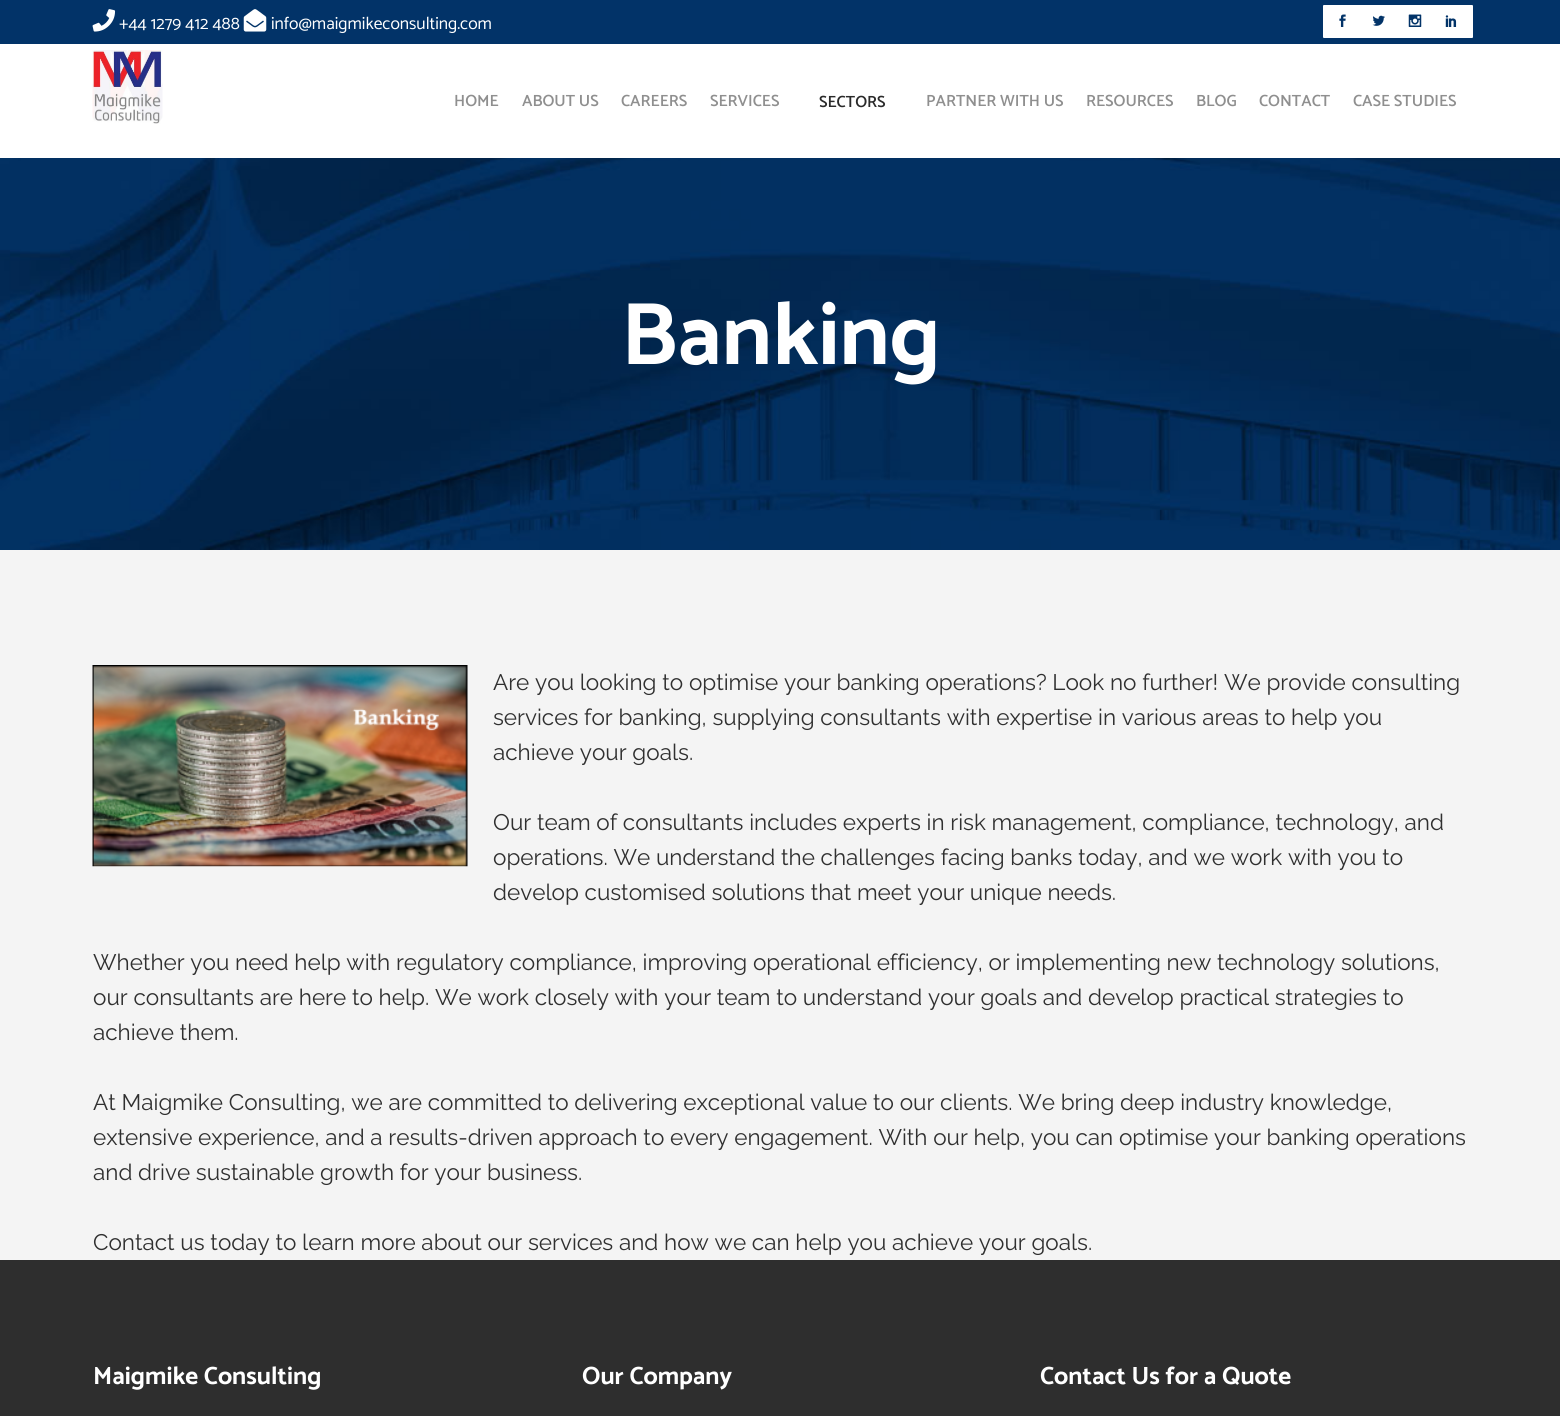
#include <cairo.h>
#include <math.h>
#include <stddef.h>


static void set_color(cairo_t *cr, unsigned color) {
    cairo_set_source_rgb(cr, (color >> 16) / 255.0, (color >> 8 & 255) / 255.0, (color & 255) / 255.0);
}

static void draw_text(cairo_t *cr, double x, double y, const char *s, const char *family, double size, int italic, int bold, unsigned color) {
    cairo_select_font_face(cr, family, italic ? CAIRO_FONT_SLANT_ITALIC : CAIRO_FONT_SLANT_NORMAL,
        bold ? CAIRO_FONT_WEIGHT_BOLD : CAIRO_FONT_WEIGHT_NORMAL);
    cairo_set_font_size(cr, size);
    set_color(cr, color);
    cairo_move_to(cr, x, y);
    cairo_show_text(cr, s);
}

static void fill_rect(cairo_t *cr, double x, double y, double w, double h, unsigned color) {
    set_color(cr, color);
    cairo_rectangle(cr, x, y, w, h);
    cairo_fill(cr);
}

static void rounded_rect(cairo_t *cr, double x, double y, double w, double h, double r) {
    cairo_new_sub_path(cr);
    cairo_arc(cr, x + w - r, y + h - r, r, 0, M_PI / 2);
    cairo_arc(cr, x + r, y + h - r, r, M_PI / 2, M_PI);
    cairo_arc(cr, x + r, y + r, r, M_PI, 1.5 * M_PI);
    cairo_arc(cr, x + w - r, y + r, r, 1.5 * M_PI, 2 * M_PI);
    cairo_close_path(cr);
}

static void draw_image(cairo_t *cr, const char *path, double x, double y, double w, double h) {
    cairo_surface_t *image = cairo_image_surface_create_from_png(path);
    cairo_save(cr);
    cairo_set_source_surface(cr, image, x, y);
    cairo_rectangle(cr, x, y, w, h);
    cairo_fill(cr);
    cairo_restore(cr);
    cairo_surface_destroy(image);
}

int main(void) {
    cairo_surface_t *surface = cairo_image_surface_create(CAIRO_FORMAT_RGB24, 1560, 1416);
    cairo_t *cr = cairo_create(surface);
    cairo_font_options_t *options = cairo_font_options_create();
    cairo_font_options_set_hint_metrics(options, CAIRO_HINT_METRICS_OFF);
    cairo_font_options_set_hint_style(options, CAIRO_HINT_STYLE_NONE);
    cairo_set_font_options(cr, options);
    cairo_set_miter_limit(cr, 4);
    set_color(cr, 0xF4F4F4);
    cairo_paint(cr);
    fill_rect(cr, 0, 0, 1560, 44, 0x023368);
    draw_image(cr, "assets/img1.png", 92, 9, 24, 23);
    draw_text(cr, 119, 29, "+44 1279 412 488", "Catamaran", 17.5, 0, 0, 0xFFFFFF);
    draw_image(cr, "assets/img2.png", 243, 9, 24, 23);
    draw_text(cr, 271, 29, "info@maigmikeconsulting.com", "Catamaran", 17.5, 0, 0, 0xFFFFFF);
    rounded_rect(cr, 1323, 5, 41, 33, 1);
    cairo_fill(cr);
    draw_image(cr, "assets/img3.png", 1339, 14, 7, 13);
    rounded_rect(cr, 1359, 5, 41, 33, 1);
    cairo_fill(cr);
    draw_image(cr, "assets/img4.png", 1372, 15, 13, 11);
    rounded_rect(cr, 1395, 5, 41, 33, 1);
    cairo_fill(cr);
    draw_image(cr, "assets/img5.png", 1408, 14, 14, 13);
    rounded_rect(cr, 1431, 5, 42, 33, 1);
    cairo_fill(cr);
    draw_image(cr, "assets/img6.png", 1445, 15, 12, 12);
    fill_rect(cr, 0, 44, 1560, 114, 0xFFFFFF);
    draw_image(cr, "assets/img7.png", 92, 50, 71, 74);
    draw_text(cr, 454, 106, "HOME", "Catamaran SemiBold", 16.25, 0, 0, 0x8F8F8F);
    draw_text(cr, 522, 106, "ABOUT US", "Catamaran SemiBold", 16.25, 0, 0, 0x8F8F8F);
    draw_text(cr, 621, 106, "CAREERS", "Catamaran SemiBold", 16.25, 0, 0, 0x8F8F8F);
    draw_text(cr, 710, 106, "SERVICES", "Catamaran SemiBold", 16.25, 0, 0, 0x8F8F8F);
    draw_text(cr, 819, 107, "SECTORS", "Catamaran SemiBold", 16.25, 0, 0, 0x2A2A2A);
    draw_text(cr, 926, 106, "PARTNER WITH US", "Catamaran SemiBold", 16.25, 0, 0, 0x8F8F8F);
    draw_text(cr, 1086, 106, "RESOURCES", "Catamaran SemiBold", 16.25, 0, 0, 0x8F8F8F);
    draw_text(cr, 1196, 106, "BLOG", "Catamaran SemiBold", 16.25, 0, 0, 0x8F8F8F);
    draw_text(cr, 1259, 106, "CONTACT", "Catamaran SemiBold", 16.25, 0, 0, 0x8F8F8F);
    draw_text(cr, 1353, 106, "CASE STUDIES", "Catamaran SemiBold", 16.25, 0, 0, 0x8F8F8F);
    draw_image(cr, "assets/img8.png", 0, 158, 1560, 392);
    draw_text(cr, 621, 364, "Banking", "Catamaran", 89, 0, 1, 0xFFFFFF);
    draw_image(cr, "assets/img9.png", 92, 665, 376, 202);
    draw_text(cr, 493, 690, "Are you looking to optimise your banking operations? Look no further! We provide consulting", "Raleway", 22.5, 0, 0, 0x303030);
    draw_text(cr, 493, 725, "services for banking, supplying consultants with expertise in various areas to help you", "Raleway", 22.5, 0, 0, 0x303030);
    draw_text(cr, 493, 760, "achieve your goals.", "Raleway", 22.5, 0, 0, 0x303030);
    draw_text(cr, 493, 830, "Our team of consultants includes experts in risk management, compliance, technology, and", "Raleway", 22.5, 0, 0, 0x303030);
    draw_text(cr, 493, 865, "operations. We understand the challenges facing banks today, and we work with you to", "Raleway", 22.5, 0, 0, 0x303030);
    draw_text(cr, 493, 900, "develop customised solutions that meet your unique needs.", "Raleway", 22.5, 0, 0, 0x303030);
    draw_text(cr, 93, 970, "Whether you need help with regulatory compliance, improving operational efficiency, or implementing new technology solutions,", "Raleway", 22.5, 0, 0, 0x303030);
    draw_text(cr, 93, 1005, "our consultants are here to help. We work closely with your team to understand your goals and develop practical strategies to", "Raleway", 22.5, 0, 0, 0x303030);
    draw_text(cr, 93, 1040, "achieve them.", "Raleway", 22.5, 0, 0, 0x303030);
    draw_text(cr, 93, 1110, "At Maigmike Consulting, we are committed to delivering exceptional value to our clients. We bring deep industry knowledge,", "Raleway", 22.5, 0, 0, 0x303030);
    draw_text(cr, 93, 1145, "extensive experience, and a results-driven approach to every engagement. With our help, you can optimise your banking operations", "Raleway", 22.5, 0, 0, 0x303030);
    draw_text(cr, 93, 1180, "and drive sustainable growth for your business.", "Raleway", 22.5, 0, 0, 0x303030);
    draw_text(cr, 93, 1250, "Contact us today to learn more about our services and how we can help you achieve your goals.", "Raleway", 22.5, 0, 0, 0x303030);
    fill_rect(cr, 0, 1260, 1560, 156, 0x2E2E2E);
    draw_text(cr, 93, 1384, "Maigmike Consulting", "Catamaran", 25, 0, 1, 0xFFFFFF);
    draw_text(cr, 582, 1384, "Our Company", "Catamaran", 25, 0, 1, 0xFFFFFF);
    draw_text(cr, 1040, 1384, "Contact Us for a Quote", "Catamaran", 25, 0, 1, 0xFFFFFF);
    cairo_surface_write_to_png(surface, "output.png");
    cairo_font_options_destroy(options);
    cairo_destroy(cr);
    cairo_surface_destroy(surface);
    return 0;
}
